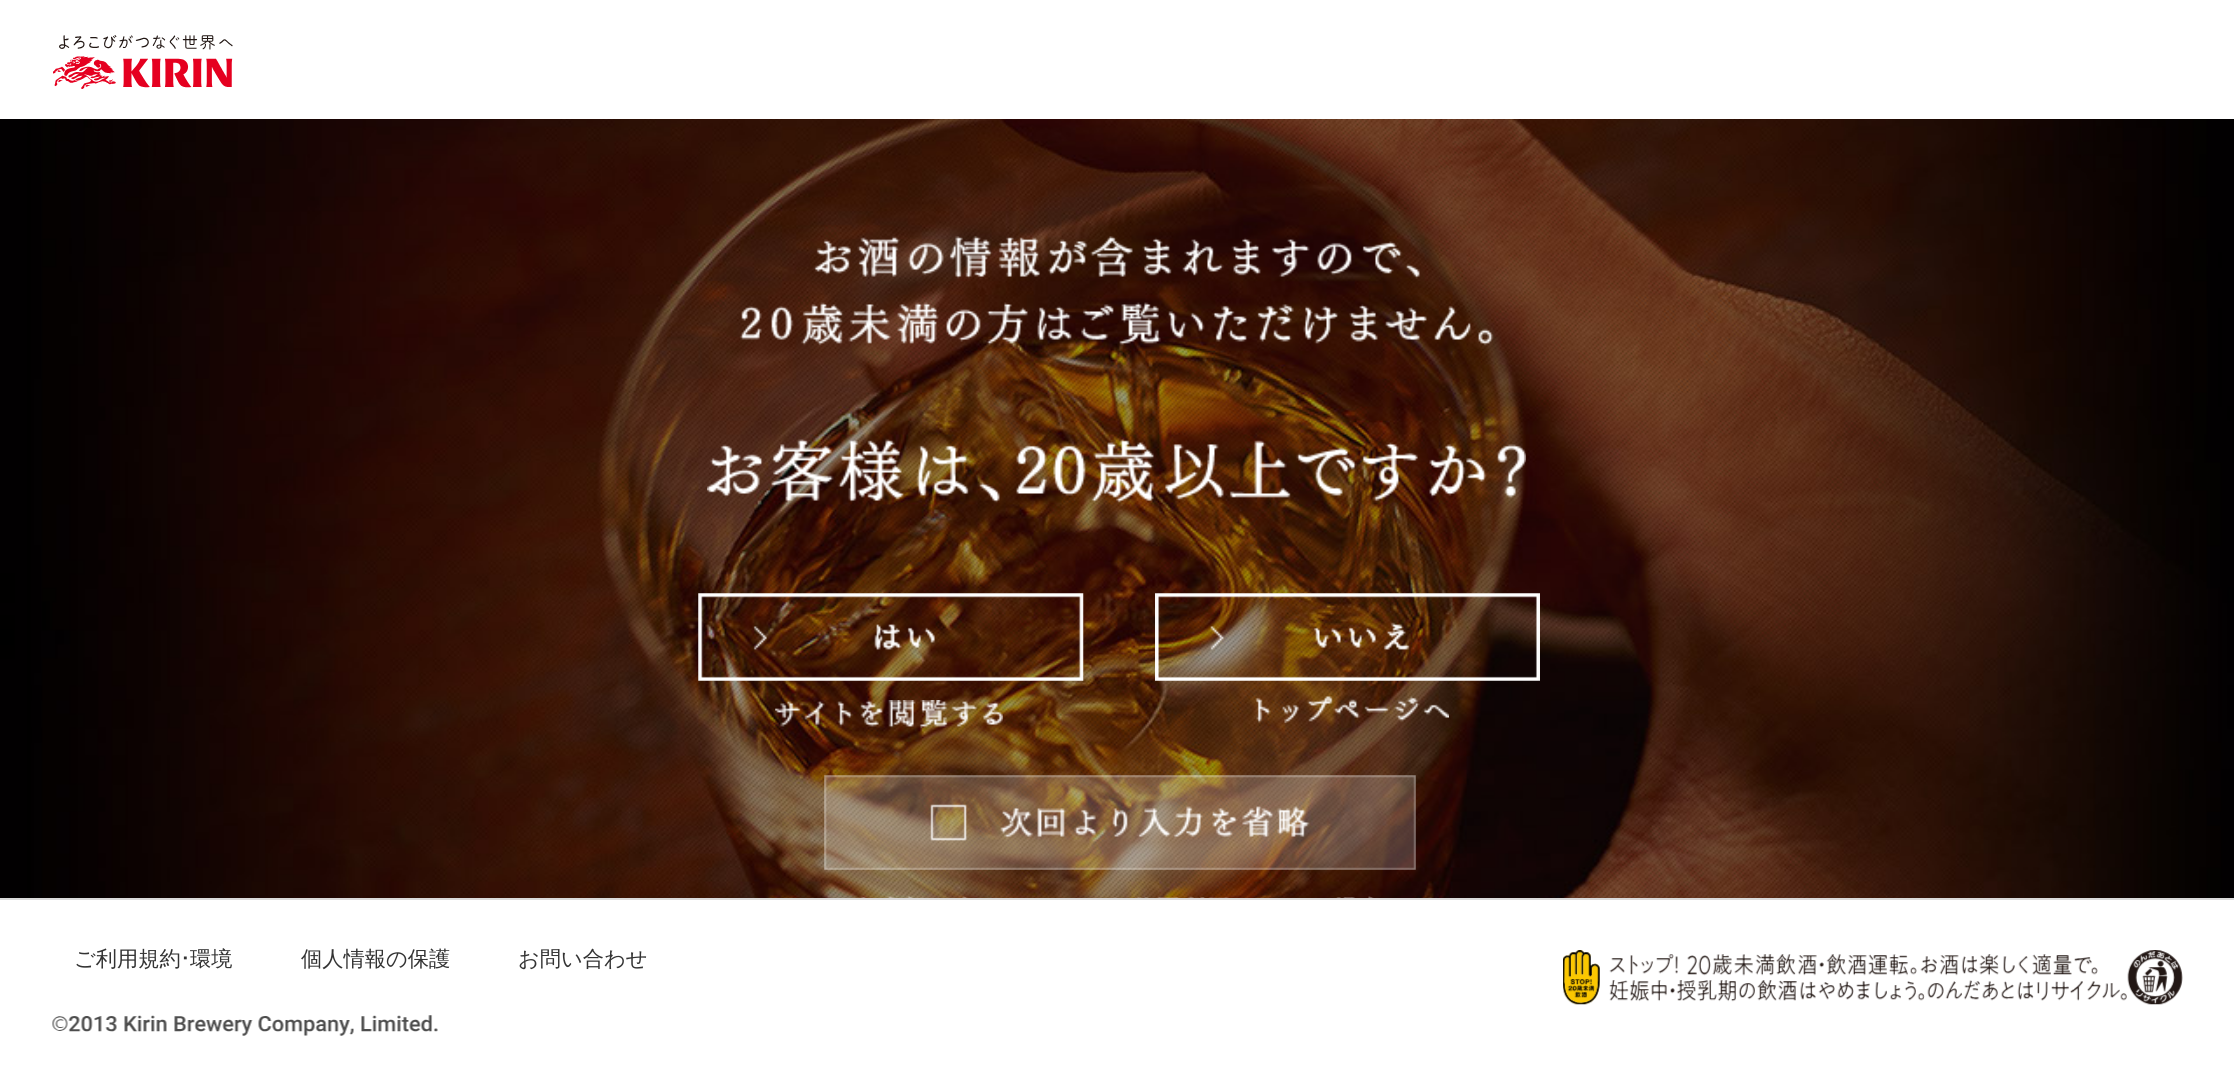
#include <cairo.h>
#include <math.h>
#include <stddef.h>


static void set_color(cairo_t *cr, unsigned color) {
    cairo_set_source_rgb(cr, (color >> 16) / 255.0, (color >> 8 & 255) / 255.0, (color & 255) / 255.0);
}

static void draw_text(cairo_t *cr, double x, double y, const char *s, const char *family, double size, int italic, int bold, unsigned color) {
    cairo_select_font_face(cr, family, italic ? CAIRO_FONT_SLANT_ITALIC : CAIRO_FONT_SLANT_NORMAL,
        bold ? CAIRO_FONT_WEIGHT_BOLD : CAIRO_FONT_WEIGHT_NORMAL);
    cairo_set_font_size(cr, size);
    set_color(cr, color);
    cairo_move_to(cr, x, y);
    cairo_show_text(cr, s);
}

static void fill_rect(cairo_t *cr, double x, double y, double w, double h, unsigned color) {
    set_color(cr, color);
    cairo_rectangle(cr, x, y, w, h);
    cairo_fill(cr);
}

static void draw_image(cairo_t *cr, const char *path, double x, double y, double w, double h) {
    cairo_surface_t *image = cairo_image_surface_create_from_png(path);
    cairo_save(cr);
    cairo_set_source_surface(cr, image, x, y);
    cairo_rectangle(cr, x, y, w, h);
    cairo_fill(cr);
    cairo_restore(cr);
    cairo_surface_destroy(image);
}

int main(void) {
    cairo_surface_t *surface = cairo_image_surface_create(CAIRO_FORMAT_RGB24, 2234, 1072);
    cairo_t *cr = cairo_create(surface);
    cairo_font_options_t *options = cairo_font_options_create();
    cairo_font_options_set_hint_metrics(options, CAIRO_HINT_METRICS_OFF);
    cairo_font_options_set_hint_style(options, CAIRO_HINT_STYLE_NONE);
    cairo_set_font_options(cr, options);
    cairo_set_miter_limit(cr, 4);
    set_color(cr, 0xFFFFFF);
    cairo_paint(cr);
    draw_image(cr, "assets/img1.png", 53, 35, 180, 54);
    draw_image(cr, "assets/img2.png", 0, 119, 2234, 779);
    draw_image(cr, "assets/img3.png", 707, 236, 819, 267);
    draw_image(cr, "assets/img4.png", 698, 593, 386, 88);
    draw_image(cr, "assets/img5.png", 1155, 593, 385, 88);
    draw_image(cr, "assets/img6.png", 775, 700, 228, 28);
    draw_image(cr, "assets/img7.png", 1255, 696, 194, 27);
    draw_image(cr, "assets/img8.png", 824, 775, 592, 95);
    draw_image(cr, "assets/img9.png", 837, 896, 537, 2);
    fill_rect(cr, 0, 898, 2234, 2, 0xDBDBDB);
    draw_text(cr, 74, 966, "ご利用規約", "WenQuanYi Zen Hei Medium", 21.25, 0, 0, 0x333333);
    draw_text(cr, 180, 966, "･", "IPAPGothic", 21.25, 0, 0, 0x333333);
    draw_text(cr, 190, 966, "環境", "WenQuanYi Zen Hei Medium", 21.25, 0, 0, 0x333333);
    draw_text(cr, 301, 966, "個人情報の保護", "WenQuanYi Zen Hei Medium", 21.25, 0, 0, 0x333333);
    draw_text(cr, 518, 966, "お問い合わせ", "WenQuanYi Zen Hei Medium", 21.25, 0, 0, 0x333333);
    draw_image(cr, "assets/img10.png", 52, 1015, 386, 21);
    draw_image(cr, "assets/img11.png", 1563, 950, 620, 55);
    cairo_surface_write_to_png(surface, "output.png");
    cairo_font_options_destroy(options);
    cairo_destroy(cr);
    cairo_surface_destroy(surface);
    return 0;
}
